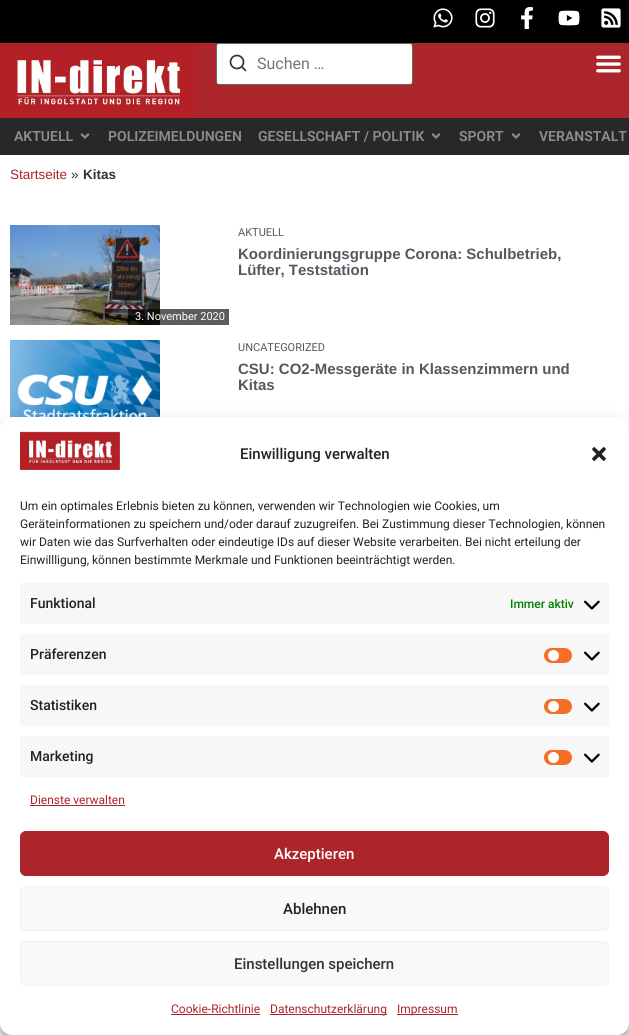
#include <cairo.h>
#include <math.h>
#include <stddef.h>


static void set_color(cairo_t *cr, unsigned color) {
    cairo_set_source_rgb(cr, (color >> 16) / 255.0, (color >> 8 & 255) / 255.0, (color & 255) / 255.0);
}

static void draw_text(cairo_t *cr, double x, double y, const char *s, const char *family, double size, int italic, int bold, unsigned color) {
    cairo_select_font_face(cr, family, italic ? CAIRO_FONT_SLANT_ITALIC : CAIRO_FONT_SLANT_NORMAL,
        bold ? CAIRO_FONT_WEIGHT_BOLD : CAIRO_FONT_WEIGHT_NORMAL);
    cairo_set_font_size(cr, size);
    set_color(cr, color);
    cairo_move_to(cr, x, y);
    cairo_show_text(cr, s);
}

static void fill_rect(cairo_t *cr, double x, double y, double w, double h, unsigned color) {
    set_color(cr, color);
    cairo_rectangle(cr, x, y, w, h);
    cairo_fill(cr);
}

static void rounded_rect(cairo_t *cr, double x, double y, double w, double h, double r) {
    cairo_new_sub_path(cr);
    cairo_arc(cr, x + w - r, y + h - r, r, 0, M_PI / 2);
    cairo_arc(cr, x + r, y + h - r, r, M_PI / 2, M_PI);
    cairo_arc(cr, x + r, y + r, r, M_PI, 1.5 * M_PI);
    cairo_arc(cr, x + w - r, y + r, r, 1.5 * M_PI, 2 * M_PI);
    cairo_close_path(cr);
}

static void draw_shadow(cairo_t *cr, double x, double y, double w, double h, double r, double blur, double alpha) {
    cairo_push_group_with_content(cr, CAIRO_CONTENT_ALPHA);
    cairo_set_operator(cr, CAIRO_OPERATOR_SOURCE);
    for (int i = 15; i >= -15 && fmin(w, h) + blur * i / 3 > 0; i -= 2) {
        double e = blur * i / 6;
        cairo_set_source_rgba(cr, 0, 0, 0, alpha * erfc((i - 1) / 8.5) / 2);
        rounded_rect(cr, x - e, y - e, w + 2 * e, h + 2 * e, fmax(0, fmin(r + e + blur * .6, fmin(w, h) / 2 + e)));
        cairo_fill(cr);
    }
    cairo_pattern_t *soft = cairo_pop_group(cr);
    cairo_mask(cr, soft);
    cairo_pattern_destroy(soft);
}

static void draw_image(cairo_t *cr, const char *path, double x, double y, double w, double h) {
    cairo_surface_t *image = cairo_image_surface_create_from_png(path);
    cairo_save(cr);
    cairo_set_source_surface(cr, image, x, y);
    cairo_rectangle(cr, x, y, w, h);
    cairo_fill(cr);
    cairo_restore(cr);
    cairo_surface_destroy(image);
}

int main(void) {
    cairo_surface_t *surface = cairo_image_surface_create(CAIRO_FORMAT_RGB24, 629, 1035);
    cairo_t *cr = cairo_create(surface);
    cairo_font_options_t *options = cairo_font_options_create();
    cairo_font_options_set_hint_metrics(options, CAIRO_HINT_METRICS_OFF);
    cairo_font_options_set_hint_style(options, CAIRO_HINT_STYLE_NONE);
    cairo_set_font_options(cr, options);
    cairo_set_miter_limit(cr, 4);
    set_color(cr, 0xFFFFFF);
    cairo_paint(cr);
    fill_rect(cr, 0, 0, 629, 43, 0x000000);
    draw_image(cr, "assets/img1.png", 433, 8, 20, 20);
    draw_image(cr, "assets/img2.png", 475, 8, 20, 20);
    draw_image(cr, "assets/img3.png", 521, 7, 12, 22);
    draw_image(cr, "assets/img4.png", 558, 10, 22, 16);
    draw_image(cr, "assets/img5.png", 601, 8, 20, 20);
    fill_rect(cr, 196, 43, 433, 75, 0xAB252A);
    draw_image(cr, "assets/img6.png", 0, 43, 196, 75);
    set_color(cr, 0xFFFFFF);
    rounded_rect(cr, 216.5, 43.5, 196, 41, 2.5);
    cairo_fill_preserve(cr);
    set_color(cr, 0x666666);
    cairo_set_line_width(cr, 1);
    cairo_stroke(cr);
    cairo_arc(cr, 237, 62, 6.5, 0, 2 * M_PI);
    set_color(cr, 0x333333);
    cairo_set_line_width(cr, 1.7);
    cairo_stroke(cr);
    cairo_new_path(cr);
    cairo_move_to(cr, 245.5, 70.5);
    cairo_line_to(cr, 242, 67);
    cairo_set_line_cap(cr, CAIRO_LINE_CAP_ROUND);
    cairo_set_line_join(cr, CAIRO_LINE_JOIN_ROUND);
    cairo_stroke(cr);
    draw_text(cr, 257, 69, "Suchen …", "Roboto", 16, 0, 0, 0x757575);
    draw_image(cr, "assets/img7.png", 596, 55, 25, 18);
    fill_rect(cr, 0, 118, 629, 37, 0x282828);
    draw_text(cr, 14, 141, "AKTUELL", "Roboto SemiBold", 14, 0, 0, 0x8D8D8D);
    draw_image(cr, "assets/img8.png", 80, 133, 10, 6);
    draw_text(cr, 108, 141, "POLIZEIMELDUNGEN", "Roboto SemiBold", 14, 0, 0, 0x8D8D8D);
    draw_text(cr, 258, 141, "GESELLSCHAFT / POLITIK", "Roboto SemiBold", 14, 0, 0, 0x8D8D8D);
    draw_image(cr, "assets/img8.png", 431, 133, 10, 6);
    draw_text(cr, 459, 141, "SPORT", "Roboto SemiBold", 14, 0, 0, 0x8D8D8D);
    draw_image(cr, "assets/img8.png", 511, 133, 10, 6);
    draw_text(cr, 539, 141, "VERANSTALT", "Roboto SemiBold", 14, 0, 0, 0x8D8D8D);
    draw_text(cr, 10, 179, "Startseite", "Liberation Sans", 13.5, 0, 0, 0xAB252A);
    draw_text(cr, 71, 179, "»", "Liberation Sans", 13.5, 0, 0, 0x333333);
    draw_text(cr, 83, 179, "Kitas", "Liberation Sans", 13.5, 0, 1, 0x333333);
    draw_text(cr, 238, 236, "AKTUELL", "Roboto", 11, 0, 0, 0x54595F);
    draw_text(cr, 238, 259, "Koordinierungsgruppe Corona: Schulbetrieb,", "Liberation Sans", 15, 0, 1, 0x54595F);
    draw_text(cr, 238, 275, "Lüfter, Teststation", "Liberation Sans", 15, 0, 1, 0x54595F);
    draw_image(cr, "assets/img9.png", 10, 225, 150, 100);
    cairo_set_source_rgba(cr, 0, 0, 0, 0.64);
    cairo_rectangle(cr, 128, 309, 101, 16);
    cairo_fill(cr);
    draw_text(cr, 135, 320, "3. November 2020", "Roboto", 11, 0, 0, 0xFFFFFF);
    draw_image(cr, "assets/img10.png", 10, 340, 150, 78);
    draw_text(cr, 238, 351, "UNCATEGORIZED", "Roboto", 11, 0, 0, 0x54595F);
    draw_text(cr, 238, 374, "CSU: CO2-Messgeräte in Klassenzimmern und", "Liberation Sans", 15, 0, 1, 0x54595F);
    draw_text(cr, 238, 390, "Kitas", "Liberation Sans", 15, 0, 1, 0x54595F);
    set_color(cr, 0x000000);
    draw_shadow(cr, 0, 423, 629, 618, 12, 3, 0.23);
    draw_shadow(cr, 0, 427, 629, 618, 12, 10, 0.19);
    set_color(cr, 0xFFFFFF);
    rounded_rect(cr, 0, 417, 629, 618, 12);
    cairo_fill(cr);
    draw_image(cr, "assets/img11.png", 20, 431, 100, 39);
    draw_text(cr, 240, 459, "Einwilligung verwalten", "Roboto Medium", 15, 0, 0, 0x222222);
    draw_image(cr, "assets/img12.png", 592, 447, 14, 14);
    draw_text(cr, 20, 510, "Um ein optimales Erlebnis bieten zu können, verwenden wir Technologien wie Cookies, um", "Roboto", 12, 0, 0, 0x222222);
    draw_text(cr, 20, 528, "Geräteinformationen zu speichern und/oder darauf zuzugreifen. Bei Zustimmung dieser Technologien, können", "Roboto", 12, 0, 0, 0x222222);
    draw_text(cr, 20, 546, "wir Daten wie das Surfverhalten oder eindeutige IDs auf dieser Website verarbeiten. Bei nicht erteilung der", "Roboto", 12, 0, 0, 0x222222);
    draw_text(cr, 20, 564, "Einwillligung, können bestimmte Merkmale und Funktionen beeinträchtigt werden.", "Roboto", 12, 0, 0, 0x222222);
    fill_rect(cr, 20, 583, 589, 41, 0xF7F7F7);
    draw_text(cr, 30, 608, "Funktional", "Roboto Medium", 14, 0, 0, 0x222222);
    draw_text(cr, 510, 608, "Immer aktiv", "Roboto Medium", 12, 0, 0, 0x008000);
    draw_image(cr, "assets/img13.png", 584, 600, 16, 10);
    fill_rect(cr, 20, 634, 589, 41, 0xF7F7F7);
    draw_text(cr, 30, 659, "Präferenzen", "Roboto Medium", 14, 0, 0, 0x222222);
    set_color(cr, 0xF56E28);
    rounded_rect(cr, 544, 648, 28, 15, 7.5);
    cairo_fill(cr);
    set_color(cr, 0xFFFFFF);
    cairo_arc(cr, 553.5, 655.5, 5.5, 0, 2 * M_PI);
    cairo_fill(cr);
    draw_image(cr, "assets/img13.png", 584, 651, 16, 10);
    fill_rect(cr, 20, 685, 589, 41, 0xF7F7F7);
    draw_text(cr, 30, 710, "Statistiken", "Roboto Medium", 14, 0, 0, 0x222222);
    set_color(cr, 0xF56E28);
    rounded_rect(cr, 544, 699, 28, 15, 7.5);
    cairo_fill(cr);
    set_color(cr, 0xFFFFFF);
    cairo_arc(cr, 553.5, 706.5, 5.5, 0, 2 * M_PI);
    cairo_fill(cr);
    draw_image(cr, "assets/img13.png", 584, 702, 16, 10);
    fill_rect(cr, 20, 736, 589, 41, 0xF7F7F7);
    draw_text(cr, 30, 761, "Marketing", "Roboto Medium", 14, 0, 0, 0x222222);
    set_color(cr, 0xF56E28);
    rounded_rect(cr, 544, 750, 28, 15, 7.5);
    cairo_fill(cr);
    set_color(cr, 0xFFFFFF);
    cairo_arc(cr, 553.5, 757.5, 5.5, 0, 2 * M_PI);
    cairo_fill(cr);
    draw_image(cr, "assets/img13.png", 584, 753, 16, 10);
    draw_text(cr, 30, 804, "Dienste verwalten", "Roboto", 12, 0, 0, 0xAB252A);
    fill_rect(cr, 30, 805, 95, 1, 0xAB252A);
    rounded_rect(cr, 20.5, 831.5, 588, 44, 5.5);
    cairo_fill_preserve(cr);
    cairo_set_line_width(cr, 1);
    cairo_set_line_cap(cr, CAIRO_LINE_CAP_BUTT);
    cairo_set_line_join(cr, CAIRO_LINE_JOIN_MITER);
    cairo_stroke(cr);
    draw_text(cr, 274, 859, "Akzeptieren", "Roboto Medium", 15, 0, 0, 0xFFFFFF);
    set_color(cr, 0xF9F9F9);
    rounded_rect(cr, 20.5, 886.5, 588, 44, 5.5);
    cairo_fill_preserve(cr);
    set_color(cr, 0xF2F2F2);
    cairo_stroke(cr);
    draw_text(cr, 283, 914, "Ablehnen", "Roboto Medium", 15, 0, 0, 0x222222);
    set_color(cr, 0xF9F9F9);
    rounded_rect(cr, 20.5, 941.5, 588, 44, 5.5);
    cairo_fill_preserve(cr);
    set_color(cr, 0xF2F2F2);
    cairo_stroke(cr);
    draw_text(cr, 234, 969, "Einstellungen speichern", "Roboto Medium", 15, 0, 0, 0x333333);
    draw_text(cr, 171, 1013, "Cookie-Richtlinie", "Roboto", 12, 0, 0, 0xAB252A);
    fill_rect(cr, 171, 1014, 89, 1, 0xAB252A);
    fill_rect(cr, 270, 1014, 117, 1, 0xAB252A);
    draw_text(cr, 270, 1013, "Datenschutzerklärung", "Roboto", 12, 0, 0, 0xAB252A);
    fill_rect(cr, 397, 1014, 61, 1, 0xAB252A);
    draw_text(cr, 397, 1013, "Impressum", "Roboto", 12, 0, 0, 0xAB252A);
    cairo_surface_write_to_png(surface, "output.png");
    cairo_font_options_destroy(options);
    cairo_destroy(cr);
    cairo_surface_destroy(surface);
    return 0;
}
